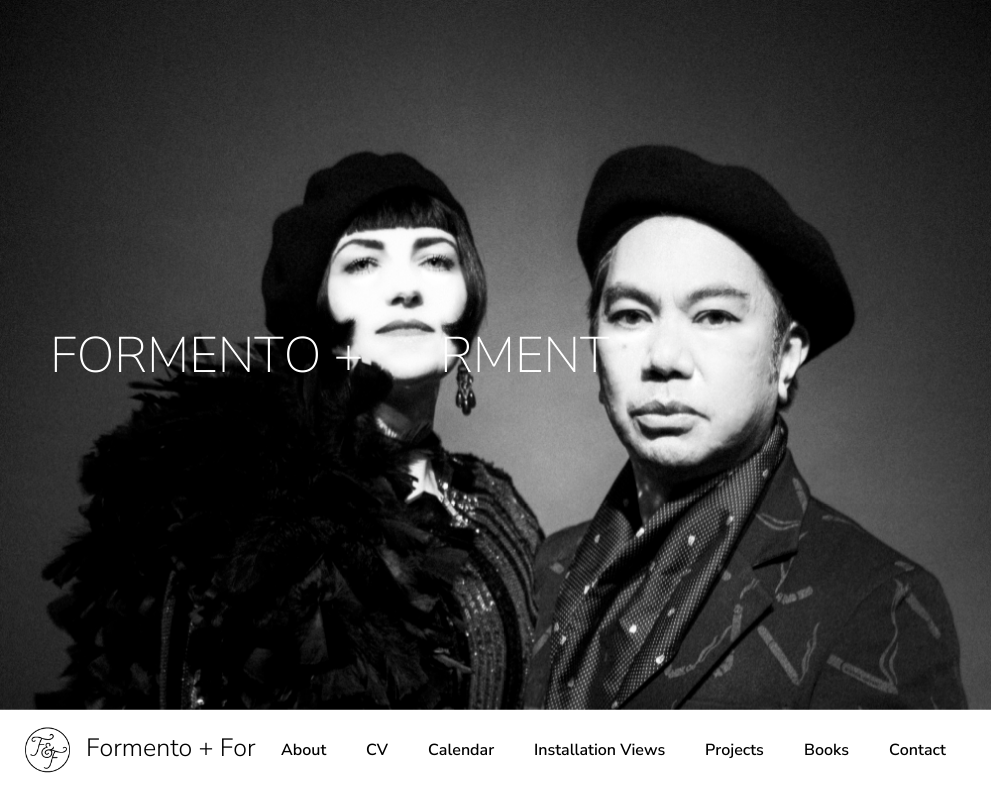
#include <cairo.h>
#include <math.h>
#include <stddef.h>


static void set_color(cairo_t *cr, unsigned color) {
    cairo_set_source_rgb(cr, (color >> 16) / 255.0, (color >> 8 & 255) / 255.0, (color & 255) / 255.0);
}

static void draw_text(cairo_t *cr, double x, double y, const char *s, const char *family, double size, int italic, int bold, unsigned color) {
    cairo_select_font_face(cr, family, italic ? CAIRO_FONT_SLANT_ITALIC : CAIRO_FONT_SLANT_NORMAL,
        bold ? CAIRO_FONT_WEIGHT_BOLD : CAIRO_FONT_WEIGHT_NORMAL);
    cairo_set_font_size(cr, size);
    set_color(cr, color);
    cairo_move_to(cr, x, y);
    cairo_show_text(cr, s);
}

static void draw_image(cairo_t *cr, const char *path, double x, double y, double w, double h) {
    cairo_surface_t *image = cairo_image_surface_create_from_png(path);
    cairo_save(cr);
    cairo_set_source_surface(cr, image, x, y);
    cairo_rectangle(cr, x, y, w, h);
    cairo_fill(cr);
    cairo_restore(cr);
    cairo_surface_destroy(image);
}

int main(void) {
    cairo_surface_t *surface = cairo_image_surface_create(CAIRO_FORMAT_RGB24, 991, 790);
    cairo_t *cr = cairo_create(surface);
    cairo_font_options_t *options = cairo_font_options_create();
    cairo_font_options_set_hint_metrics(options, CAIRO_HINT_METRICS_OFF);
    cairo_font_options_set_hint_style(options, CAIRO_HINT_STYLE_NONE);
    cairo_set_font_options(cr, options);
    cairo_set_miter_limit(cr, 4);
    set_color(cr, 0xFFFFFF);
    cairo_paint(cr);
    draw_image(cr, "assets/img1.png", 0, 0, 991, 710);
    draw_text(cr, 50, 372, "FORMENTO +", "Nunito Sans ExtraLight", 50, 0, 0, 0xFFFFFF);
    draw_text(cr, 440, 372, "RMENT", "Nunito Sans ExtraLight", 50, 0, 0, 0xFFFFFF);
    draw_image(cr, "assets/img2.png", 25, 727, 45, 46);
    draw_text(cr, 86, 756, "Formento + For", "Nunito Sans Light", 25, 0, 0, 0x000000);
    draw_text(cr, 281, 755, "About", "Nunito Sans SemiBold", 16, 0, 0, 0x000000);
    draw_text(cr, 366, 755, "CV", "Nunito Sans SemiBold", 16, 0, 0, 0x000000);
    draw_text(cr, 428, 755, "Calendar", "Nunito Sans SemiBold", 16, 0, 0, 0x000000);
    draw_text(cr, 534, 755, "Installation Views", "Nunito Sans SemiBold", 16, 0, 0, 0x000000);
    draw_text(cr, 705, 755, "Projects", "Nunito Sans SemiBold", 16, 0, 0, 0x000000);
    draw_text(cr, 804, 755, "Books", "Nunito Sans SemiBold", 16, 0, 0, 0x000000);
    draw_text(cr, 889, 755, "Contact", "Nunito Sans SemiBold", 16, 0, 0, 0x000000);
    cairo_surface_write_to_png(surface, "output.png");
    cairo_font_options_destroy(options);
    cairo_destroy(cr);
    cairo_surface_destroy(surface);
    return 0;
}
